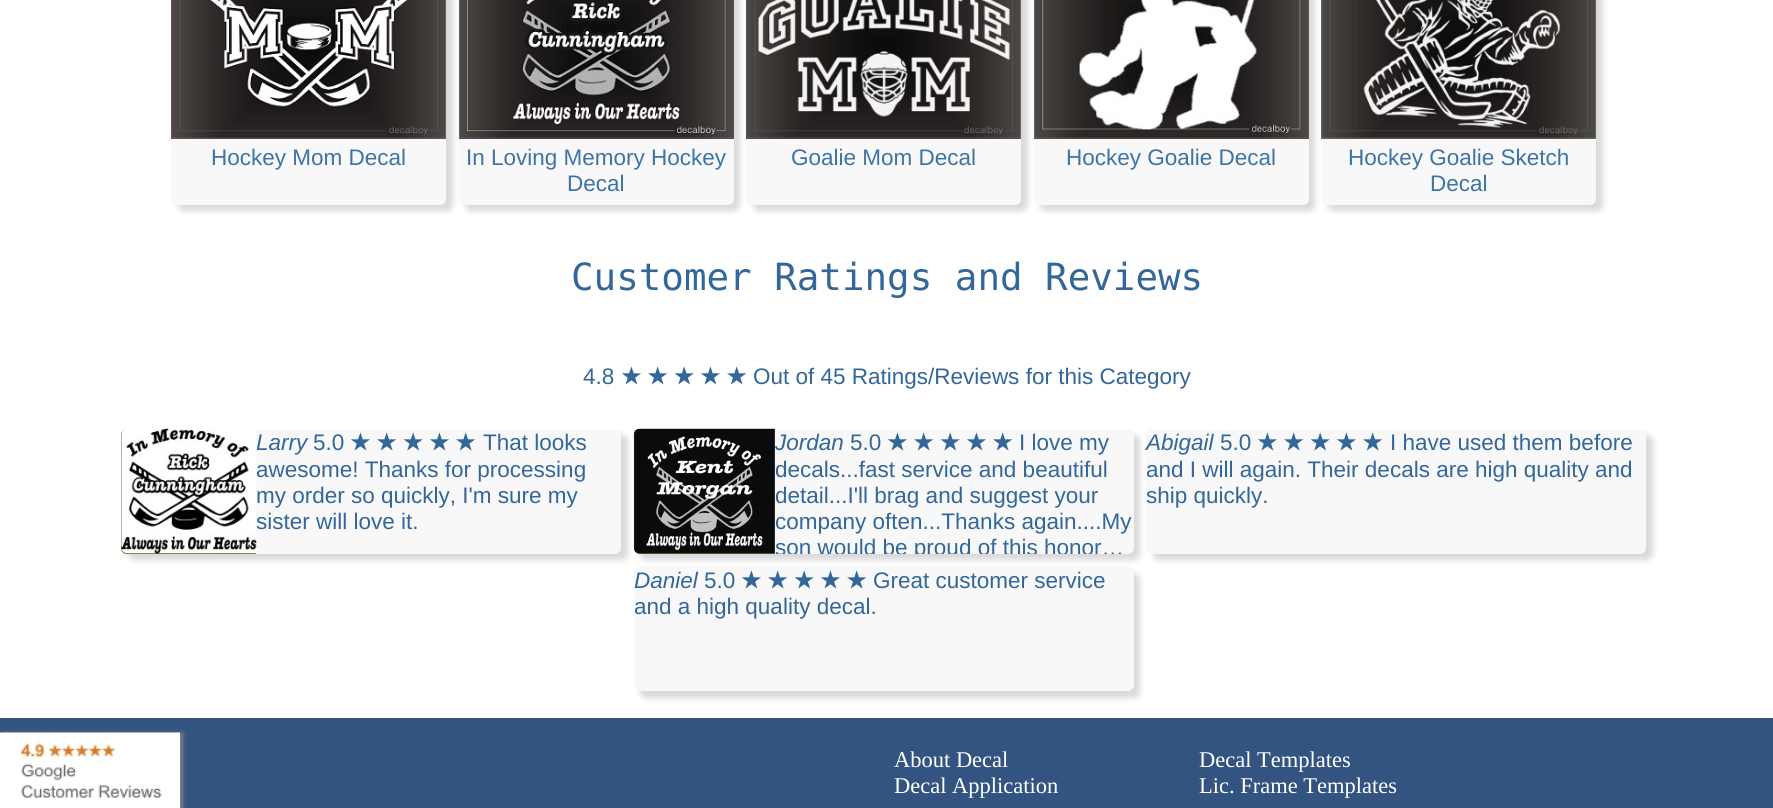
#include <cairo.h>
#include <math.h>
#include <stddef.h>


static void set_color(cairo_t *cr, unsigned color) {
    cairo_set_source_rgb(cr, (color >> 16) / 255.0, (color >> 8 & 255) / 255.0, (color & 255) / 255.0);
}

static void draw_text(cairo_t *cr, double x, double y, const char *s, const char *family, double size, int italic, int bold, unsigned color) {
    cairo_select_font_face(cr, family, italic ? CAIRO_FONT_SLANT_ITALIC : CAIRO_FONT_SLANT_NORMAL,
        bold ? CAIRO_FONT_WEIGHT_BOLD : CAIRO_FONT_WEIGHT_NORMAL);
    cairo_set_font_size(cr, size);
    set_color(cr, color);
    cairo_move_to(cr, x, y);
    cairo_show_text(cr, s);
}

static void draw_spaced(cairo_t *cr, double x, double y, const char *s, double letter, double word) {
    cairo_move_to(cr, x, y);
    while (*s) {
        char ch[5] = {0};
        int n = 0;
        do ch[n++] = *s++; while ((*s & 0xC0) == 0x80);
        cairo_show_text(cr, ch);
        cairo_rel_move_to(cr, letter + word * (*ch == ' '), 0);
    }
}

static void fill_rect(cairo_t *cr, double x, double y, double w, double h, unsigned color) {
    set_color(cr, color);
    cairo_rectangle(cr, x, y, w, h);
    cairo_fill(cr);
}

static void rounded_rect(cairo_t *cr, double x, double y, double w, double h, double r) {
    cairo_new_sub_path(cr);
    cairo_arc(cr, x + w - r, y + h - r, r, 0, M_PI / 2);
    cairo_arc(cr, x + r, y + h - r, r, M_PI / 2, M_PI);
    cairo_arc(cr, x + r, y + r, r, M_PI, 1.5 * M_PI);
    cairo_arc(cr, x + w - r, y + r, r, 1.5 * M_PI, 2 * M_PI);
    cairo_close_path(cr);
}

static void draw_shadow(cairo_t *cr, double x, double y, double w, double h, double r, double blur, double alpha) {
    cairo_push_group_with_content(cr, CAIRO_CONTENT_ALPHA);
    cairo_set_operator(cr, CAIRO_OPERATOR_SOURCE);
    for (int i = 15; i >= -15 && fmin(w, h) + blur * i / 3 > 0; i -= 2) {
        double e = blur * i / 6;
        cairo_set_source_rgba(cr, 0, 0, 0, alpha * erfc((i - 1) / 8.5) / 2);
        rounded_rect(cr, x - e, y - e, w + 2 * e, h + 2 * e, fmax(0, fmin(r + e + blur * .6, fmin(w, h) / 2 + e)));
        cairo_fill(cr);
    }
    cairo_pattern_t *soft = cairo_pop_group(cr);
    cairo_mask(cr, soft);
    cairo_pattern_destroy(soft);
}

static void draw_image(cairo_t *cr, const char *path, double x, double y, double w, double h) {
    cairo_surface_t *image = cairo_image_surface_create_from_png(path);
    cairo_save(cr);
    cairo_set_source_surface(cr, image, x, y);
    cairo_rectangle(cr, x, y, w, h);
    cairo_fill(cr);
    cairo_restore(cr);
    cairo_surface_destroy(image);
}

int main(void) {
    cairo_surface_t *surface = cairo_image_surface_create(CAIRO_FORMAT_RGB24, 1773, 808);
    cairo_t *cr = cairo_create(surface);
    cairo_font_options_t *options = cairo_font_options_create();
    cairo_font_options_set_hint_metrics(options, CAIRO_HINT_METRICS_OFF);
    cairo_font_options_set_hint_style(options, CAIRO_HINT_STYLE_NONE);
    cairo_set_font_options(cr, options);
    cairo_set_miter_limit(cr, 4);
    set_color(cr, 0xFFFFFF);
    cairo_paint(cr);
    set_color(cr, 0x000000);
    draw_shadow(cr, 178, -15, 275, 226, 6, 3, 0.15);
    set_color(cr, 0xF8F8F8);
    rounded_rect(cr, 171, -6, 275, 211, 6);
    cairo_fill(cr);
    fill_rect(cr, 171, 0, 275, 139, 0x5E2434);
    draw_image(cr, "assets/img1.png", 171, 0, 276, 139);
    draw_text(cr, 211, 165, "Hockey Mom Decal", "Liberation Sans", 22.5, 0, 0, 0x3E74A3);
    set_color(cr, 0x000000);
    draw_shadow(cr, 465, -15, 275, 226, 6, 3, 0.15);
    set_color(cr, 0xF8F8F8);
    rounded_rect(cr, 459, -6, 275, 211, 6);
    cairo_fill(cr);
    fill_rect(cr, 459, 0, 275, 139, 0x4C053B);
    draw_image(cr, "assets/img2.png", 458, 0, 276, 139);
    draw_text(cr, 466, 165, "In Loving Memory Hockey", "Liberation Sans", 22.5, 0, 0, 0x3E74A3);
    draw_text(cr, 567, 191, "Decal", "Liberation Sans", 22.5, 0, 0, 0x3E74A3);
    set_color(cr, 0x000000);
    draw_shadow(cr, 753, -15, 275, 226, 6, 3, 0.15);
    set_color(cr, 0xF8F8F8);
    rounded_rect(cr, 746, -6, 275, 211, 6);
    cairo_fill(cr);
    fill_rect(cr, 746, 0, 275, 139, 0x2E1D3E);
    draw_image(cr, "assets/img3.png", 746, 0, 276, 139);
    draw_text(cr, 791, 165, "Goalie Mom Decal", "Liberation Sans", 22.5, 0, 0, 0x3E74A3);
    set_color(cr, 0x000000);
    draw_shadow(cr, 1040, -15, 275, 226, 6, 3, 0.15);
    set_color(cr, 0xF8F8F8);
    rounded_rect(cr, 1034, -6, 275, 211, 6);
    cairo_fill(cr);
    fill_rect(cr, 1034, 0, 275, 139, 0x401A1B);
    draw_image(cr, "assets/img4.png", 1033, 0, 276, 139);
    draw_text(cr, 1066, 165, "Hockey Goalie Decal", "Liberation Sans", 22.5, 0, 0, 0x3E74A3);
    set_color(cr, 0x000000);
    draw_shadow(cr, 1328, -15, 275, 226, 6, 3, 0.15);
    set_color(cr, 0xF8F8F8);
    rounded_rect(cr, 1321, -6, 275, 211, 6);
    cairo_fill(cr);
    fill_rect(cr, 1321, 0, 275, 139, 0x52523A);
    draw_image(cr, "assets/img5.png", 1321, 0, 276, 139);
    draw_text(cr, 1348, 165, "Hockey Goalie Sketch", "Liberation Sans", 22.5, 0, 0, 0x3E74A3);
    draw_text(cr, 1430, 191, "Decal", "Liberation Sans", 22.5, 0, 0, 0x3E74A3);
    draw_text(cr, 571, 290, "Customer Ratings and Reviews", "DejaVu Sans Mono", 37.5, 0, 0, 0x336699);
    draw_text(cr, 583, 384, "4.8", "Liberation Sans", 22.5, 0, 0, 0x336699);
    cairo_select_font_face(cr, "DejaVu Sans", CAIRO_FONT_SLANT_NORMAL, CAIRO_FONT_WEIGHT_BOLD);
    draw_spaced(cr, 621, 384, "★ ★ ★ ★ ★", 0, -1);
    draw_text(cr, 753, 384, "Out of 45 Ratings/Reviews for this Category", "Liberation Sans", 22.5, 0, 0, 0x336699);
    set_color(cr, 0x000000);
    draw_shadow(cr, 128, 435, 500, 125, 6, 3, 0.15);
    set_color(cr, 0xF8F8F8);
    rounded_rect(cr, 121, 429, 500, 125, 6);
    cairo_fill(cr);
    set_color(cr, 0x625B16);
    cairo_new_path(cr);
    cairo_move_to(cr, 127, 429);
    cairo_line_to(cr, 256, 429);
    cairo_line_to(cr, 256, 554);
    cairo_line_to(cr, 127, 554);
    cairo_curve_to(cr, 123.5, 554, 121, 551.5, 121, 548);
    cairo_line_to(cr, 121, 435);
    cairo_curve_to(cr, 121, 431.5, 123.5, 429, 127, 429);
    cairo_close_path(cr);
    cairo_fill(cr);
    draw_image(cr, "assets/img6.png", 121, 428, 136, 126);
    draw_text(cr, 256, 450, "Larry", "Liberation Sans", 22.5, 1, 0, 0x336699);
    draw_text(cr, 313, 450, "5.0", "Liberation Sans", 22.5, 0, 0, 0x336699);
    cairo_select_font_face(cr, "DejaVu Sans", CAIRO_FONT_SLANT_NORMAL, CAIRO_FONT_WEIGHT_BOLD);
    draw_spaced(cr, 350, 450, "★ ★ ★ ★ ★", 0, -1);
    draw_text(cr, 483, 450, "That looks", "Liberation Sans", 22.5, 0, 0, 0x336699);
    draw_text(cr, 256, 477, "awesome! Thanks for processing", "Liberation Sans", 22.5, 0, 0, 0x336699);
    draw_text(cr, 256, 503, "my order so quickly, I'm sure my", "Liberation Sans", 22.5, 0, 0, 0x336699);
    draw_text(cr, 256, 529, "sister will love it.", "Liberation Sans", 22.5, 0, 0, 0x336699);
    set_color(cr, 0x000000);
    draw_shadow(cr, 640, 435, 500, 125, 6, 3, 0.15);
    set_color(cr, 0xF8F8F8);
    rounded_rect(cr, 634, 429, 500, 125, 6);
    cairo_fill(cr);
    set_color(cr, 0x456218);
    cairo_new_path(cr);
    cairo_move_to(cr, 640, 429);
    cairo_line_to(cr, 775, 429);
    cairo_line_to(cr, 775, 554);
    cairo_line_to(cr, 640, 554);
    cairo_curve_to(cr, 636.5, 554, 634, 551.5, 634, 548);
    cairo_line_to(cr, 634, 435);
    cairo_curve_to(cr, 634, 431.5, 636.5, 429, 640, 429);
    cairo_close_path(cr);
    cairo_fill(cr);
    draw_image(cr, "assets/img7.png", 633, 428, 142, 126);
    draw_text(cr, 775, 450, "Jordan", "Liberation Sans", 22.5, 1, 0, 0x336699);
    draw_text(cr, 850, 450, "5.0", "Liberation Sans", 22.5, 0, 0, 0x336699);
    cairo_select_font_face(cr, "DejaVu Sans", CAIRO_FONT_SLANT_NORMAL, CAIRO_FONT_WEIGHT_BOLD);
    draw_spaced(cr, 887, 450, "★ ★ ★ ★ ★", 0, -1);
    draw_text(cr, 1019, 450, "I love my", "Liberation Sans", 22.5, 0, 0, 0x336699);
    draw_text(cr, 775, 477, "decals...fast service and beautiful", "Liberation Sans", 22.5, 0, 0, 0x336699);
    draw_text(cr, 775, 503, "detail...I'll brag and suggest your", "Liberation Sans", 22.5, 0, 0, 0x336699);
    draw_text(cr, 775, 529, "company often...Thanks again....My", "Liberation Sans", 22.5, 0, 0, 0x336699);
    cairo_save(cr);
    rounded_rect(cr, 634, 429, 500, 125, 6);
    cairo_clip(cr);
    draw_text(cr, 775, 555, "son would be proud of this honor…", "Liberation Sans", 22.5, 0, 0, 0x336699);
    cairo_restore(cr);
    set_color(cr, 0x000000);
    draw_shadow(cr, 1153, 435, 500, 125, 6, 3, 0.15);
    set_color(cr, 0xF8F8F8);
    rounded_rect(cr, 1146, 429, 500, 125, 6);
    cairo_fill(cr);
    draw_text(cr, 1146, 450, "Abigail", "Liberation Sans", 22.5, 1, 0, 0x336699);
    draw_text(cr, 1220, 450, "5.0", "Liberation Sans", 22.5, 0, 0, 0x336699);
    cairo_select_font_face(cr, "DejaVu Sans", CAIRO_FONT_SLANT_NORMAL, CAIRO_FONT_WEIGHT_BOLD);
    draw_spaced(cr, 1257, 450, "★ ★ ★ ★ ★", 0, -1);
    draw_text(cr, 1390, 450, "I have used them before", "Liberation Sans", 22.5, 0, 0, 0x336699);
    draw_text(cr, 1146, 477, "and I will again. Their decals are high quality and", "Liberation Sans", 22.5, 0, 0, 0x336699);
    draw_text(cr, 1146, 503, "ship quickly.", "Liberation Sans", 22.5, 0, 0, 0x336699);
    set_color(cr, 0x000000);
    draw_shadow(cr, 640, 573, 500, 125, 6, 3, 0.15);
    set_color(cr, 0xF8F8F8);
    rounded_rect(cr, 634, 566, 500, 125, 6);
    cairo_fill(cr);
    draw_text(cr, 634, 588, "Daniel", "Liberation Sans", 22.5, 1, 0, 0x336699);
    draw_text(cr, 704, 588, "5.0", "Liberation Sans", 22.5, 0, 0, 0x336699);
    cairo_select_font_face(cr, "DejaVu Sans", CAIRO_FONT_SLANT_NORMAL, CAIRO_FONT_WEIGHT_BOLD);
    draw_spaced(cr, 741, 588, "★ ★ ★ ★ ★", 0, -1);
    draw_text(cr, 873, 588, "Great customer service", "Liberation Sans", 22.5, 0, 0, 0x336699);
    draw_text(cr, 634, 614, "and a high quality decal.", "Liberation Sans", 22.5, 0, 0, 0x336699);
    fill_rect(cr, 0, 718, 1773, 90, 0x335481);
    set_color(cr, 0x808080);
    draw_shadow(cr, 3, 733, 180, 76, 0, 2, 1);
    fill_rect(cr, 0, 799, 180, 9, 0xFFFFFF);
    draw_image(cr, "assets/img8.png", 0, 732, 180, 67);
    draw_text(cr, 894, 767, "About Decal", "Liberation Serif", 22.5, 0, 0, 0xFFFFFF);
    draw_text(cr, 894, 793, "Decal Application", "Liberation Serif", 22.5, 0, 0, 0xFFFFFF);
    draw_text(cr, 1199, 767, "Decal Templates", "Liberation Serif", 22.5, 0, 0, 0xFFFFFF);
    draw_text(cr, 1199, 793, "Lic. Frame Templates", "Liberation Serif", 22.5, 0, 0, 0xFFFFFF);
    cairo_surface_write_to_png(surface, "output.png");
    cairo_font_options_destroy(options);
    cairo_destroy(cr);
    cairo_surface_destroy(surface);
    return 0;
}
